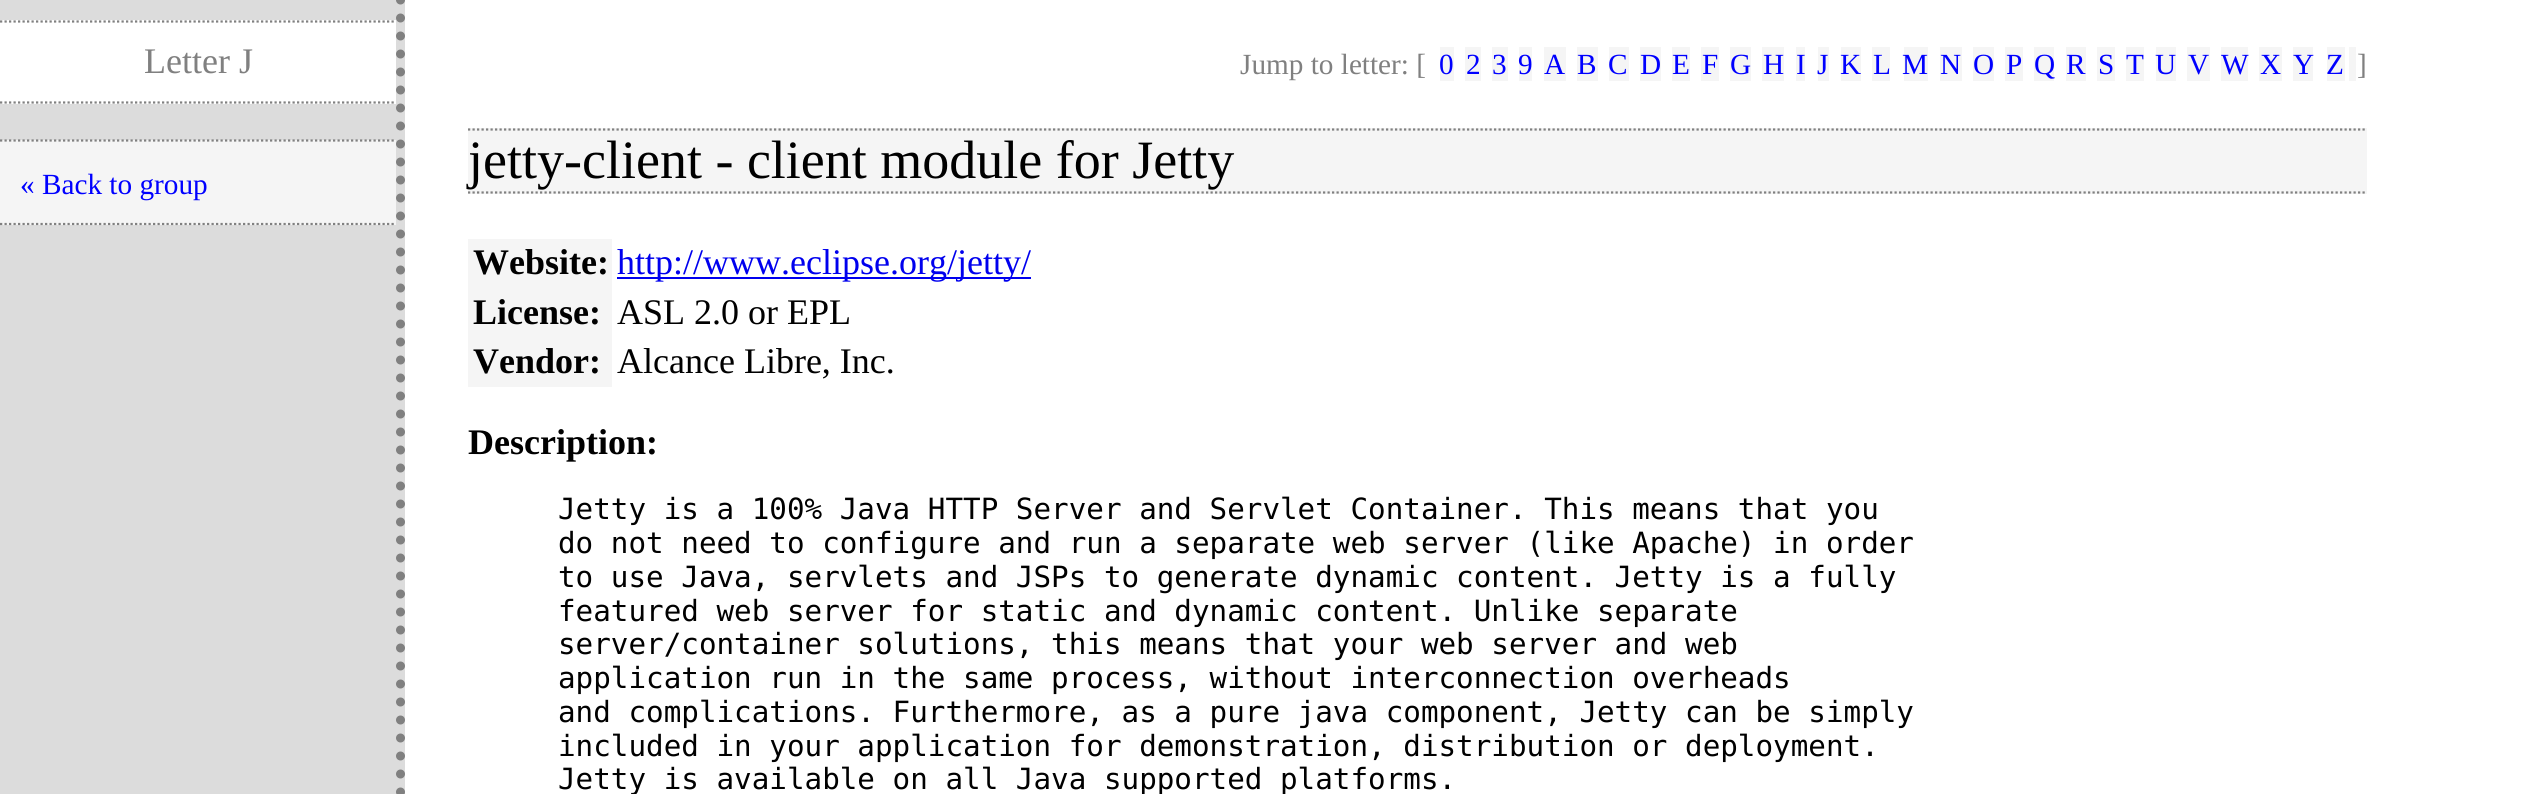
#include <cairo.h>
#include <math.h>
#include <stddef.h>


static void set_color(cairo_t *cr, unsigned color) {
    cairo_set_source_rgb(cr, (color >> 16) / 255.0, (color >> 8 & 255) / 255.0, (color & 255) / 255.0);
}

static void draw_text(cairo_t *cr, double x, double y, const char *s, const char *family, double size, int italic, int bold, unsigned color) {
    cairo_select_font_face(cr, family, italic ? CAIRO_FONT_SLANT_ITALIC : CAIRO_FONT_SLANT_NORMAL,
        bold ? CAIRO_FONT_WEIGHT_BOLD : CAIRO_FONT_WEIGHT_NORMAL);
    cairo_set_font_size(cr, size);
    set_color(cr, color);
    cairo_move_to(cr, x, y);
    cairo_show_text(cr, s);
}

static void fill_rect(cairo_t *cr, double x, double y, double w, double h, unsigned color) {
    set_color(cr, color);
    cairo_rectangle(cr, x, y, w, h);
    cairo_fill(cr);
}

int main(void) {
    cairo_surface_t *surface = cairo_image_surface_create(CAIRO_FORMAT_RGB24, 2530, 794);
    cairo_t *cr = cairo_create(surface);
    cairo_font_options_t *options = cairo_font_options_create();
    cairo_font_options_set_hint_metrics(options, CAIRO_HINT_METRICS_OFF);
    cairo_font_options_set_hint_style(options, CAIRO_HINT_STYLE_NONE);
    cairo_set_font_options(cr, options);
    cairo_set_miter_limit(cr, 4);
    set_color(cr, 0xFFFFFF);
    cairo_paint(cr);
    fill_rect(cr, 0, 0, 405, 794, 0xDCDCDC);
    cairo_new_path(cr);
    cairo_move_to(cr, 400.5, 0);
    cairo_line_to(cr, 400.5, 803);
    set_color(cr, 0x808080);
    cairo_set_line_width(cr, 9);
    cairo_set_line_cap(cr, CAIRO_LINE_CAP_ROUND);
    cairo_set_dash(cr, (double[]){0, 18}, 2, 0);
    cairo_stroke(cr);
    fill_rect(cr, 0, 20, 396, 84, 0xFFFFFF);
    cairo_new_path(cr);
    cairo_move_to(cr, 0, 21.5);
    cairo_line_to(cr, 396, 21.5);
    set_color(cr, 0x808080);
    cairo_set_line_width(cr, 2.2);
    cairo_set_line_cap(cr, CAIRO_LINE_CAP_BUTT);
    cairo_set_dash(cr, (double[]){2.25, 2.25}, 2, 0);
    cairo_stroke(cr);
    cairo_new_path(cr);
    cairo_move_to(cr, 0, 102.5);
    cairo_line_to(cr, 396, 102.5);
    cairo_stroke(cr);
    draw_text(cr, 144, 73, "Letter J", "Liberation Serif", 36, 0, 0, 0x808080);
    fill_rect(cr, 0, 140, 396, 85, 0xF5F5F5);
    cairo_new_path(cr);
    cairo_move_to(cr, 0, 140.5);
    cairo_line_to(cr, 396, 140.5);
    set_color(cr, 0x808080);
    cairo_stroke(cr);
    cairo_new_path(cr);
    cairo_move_to(cr, 0, 224);
    cairo_line_to(cr, 396, 224);
    cairo_stroke(cr);
    draw_text(cr, 20, 194, "« Back to group", "Liberation Serif", 29.25, 0, 0, 0x0000FF);
    draw_text(cr, 1240, 74, "Jump to letter: [", "Liberation Serif", 29.25, 0, 0, 0x808080);
    fill_rect(cr, 1440, 47, 14, 34, 0xF5F5F5);
    draw_text(cr, 1439, 74, "0", "Liberation Serif", 29.25, 0, 0, 0x0000FF);
    fill_rect(cr, 1465, 47, 16, 34, 0xF5F5F5);
    draw_text(cr, 1466, 74, "2", "Liberation Serif", 29.25, 0, 0, 0x0000FF);
    fill_rect(cr, 1492, 47, 16, 34, 0xF5F5F5);
    draw_text(cr, 1492, 74, "3", "Liberation Serif", 29.25, 0, 0, 0x0000FF);
    fill_rect(cr, 1519, 47, 13, 34, 0xF5F5F5);
    draw_text(cr, 1518, 74, "9", "Liberation Serif", 29.25, 0, 0, 0x0000FF);
    fill_rect(cr, 1544, 47, 22, 34, 0xF5F5F5);
    draw_text(cr, 1544, 74, "A", "Liberation Serif", 29.25, 0, 0, 0x0000FF);
    fill_rect(cr, 1577, 47, 21, 34, 0xF5F5F5);
    draw_text(cr, 1577, 74, "B", "Liberation Serif", 29.25, 0, 0, 0x0000FF);
    fill_rect(cr, 1609, 47, 20, 34, 0xF5F5F5);
    draw_text(cr, 1608, 74, "C", "Liberation Serif", 29.25, 0, 0, 0x0000FF);
    fill_rect(cr, 1640, 47, 21, 34, 0xF5F5F5);
    draw_text(cr, 1640, 74, "D", "Liberation Serif", 29.25, 0, 0, 0x0000FF);
    fill_rect(cr, 1672, 47, 18, 34, 0xF5F5F5);
    draw_text(cr, 1672, 74, "E", "Liberation Serif", 29.25, 0, 0, 0x0000FF);
    fill_rect(cr, 1701, 47, 18, 34, 0xF5F5F5);
    draw_text(cr, 1702, 74, "F", "Liberation Serif", 29.25, 0, 0, 0x0000FF);
    fill_rect(cr, 1730, 47, 21, 34, 0xF5F5F5);
    draw_text(cr, 1730, 74, "G", "Liberation Serif", 29.25, 0, 0, 0x0000FF);
    fill_rect(cr, 1762, 47, 22, 34, 0xF5F5F5);
    draw_text(cr, 1763, 74, "H", "Liberation Serif", 29.25, 0, 0, 0x0000FF);
    fill_rect(cr, 1796, 47, 9, 34, 0xF5F5F5);
    draw_text(cr, 1796, 74, "I", "Liberation Serif", 29.25, 0, 0, 0x0000FF);
    fill_rect(cr, 1818, 47, 11, 34, 0xF5F5F5);
    draw_text(cr, 1817, 74, "J", "Liberation Serif", 29.25, 0, 0, 0x0000FF);
    fill_rect(cr, 1841, 47, 20, 34, 0xF5F5F5);
    draw_text(cr, 1840, 74, "K", "Liberation Serif", 29.25, 0, 0, 0x0000FF);
    fill_rect(cr, 1872, 47, 18, 34, 0xF5F5F5);
    draw_text(cr, 1873, 74, "L", "Liberation Serif", 29.25, 0, 0, 0x0000FF);
    fill_rect(cr, 1904, 47, 24, 34, 0xF5F5F5);
    draw_text(cr, 1902, 74, "M", "Liberation Serif", 29.25, 0, 0, 0x0000FF);
    fill_rect(cr, 1940, 47, 22, 34, 0xF5F5F5);
    draw_text(cr, 1940, 74, "N", "Liberation Serif", 29.25, 0, 0, 0x0000FF);
    fill_rect(cr, 1973, 47, 21, 34, 0xF5F5F5);
    draw_text(cr, 1973, 74, "O", "Liberation Serif", 29.25, 0, 0, 0x0000FF);
    fill_rect(cr, 2005, 47, 18, 34, 0xF5F5F5);
    draw_text(cr, 2006, 74, "P", "Liberation Serif", 29.25, 0, 0, 0x0000FF);
    fill_rect(cr, 2034, 47, 20, 34, 0xF5F5F5);
    draw_text(cr, 2034, 74, "Q", "Liberation Serif", 29.25, 0, 0, 0x0000FF);
    fill_rect(cr, 2066, 47, 20, 34, 0xF5F5F5);
    draw_text(cr, 2066, 74, "R", "Liberation Serif", 29.25, 0, 0, 0x0000FF);
    fill_rect(cr, 2097, 47, 18, 34, 0xF5F5F5);
    draw_text(cr, 2098, 74, "S", "Liberation Serif", 29.25, 0, 0, 0x0000FF);
    fill_rect(cr, 2126, 47, 18, 34, 0xF5F5F5);
    draw_text(cr, 2126, 74, "T", "Liberation Serif", 29.25, 0, 0, 0x0000FF);
    fill_rect(cr, 2156, 47, 20, 34, 0xF5F5F5);
    draw_text(cr, 2155, 74, "U", "Liberation Serif", 29.25, 0, 0, 0x0000FF);
    fill_rect(cr, 2187, 47, 23, 34, 0xF5F5F5);
    draw_text(cr, 2188, 74, "V", "Liberation Serif", 29.25, 0, 0, 0x0000FF);
    fill_rect(cr, 2221, 47, 27, 34, 0xF5F5F5);
    draw_text(cr, 2221, 74, "W", "Liberation Serif", 29.25, 0, 0, 0x0000FF);
    fill_rect(cr, 2259, 47, 23, 34, 0xF5F5F5);
    draw_text(cr, 2260, 74, "X", "Liberation Serif", 29.25, 0, 0, 0x0000FF);
    fill_rect(cr, 2293, 47, 20, 34, 0xF5F5F5);
    draw_text(cr, 2293, 74, "Y", "Liberation Serif", 29.25, 0, 0, 0x0000FF);
    fill_rect(cr, 2327, 47, 18, 34, 0xF5F5F5);
    draw_text(cr, 2326, 74, "Z", "Liberation Serif", 29.25, 0, 0, 0x0000FF);
    fill_rect(cr, 2349, 47, 7, 34, 0xF5F5F5);
    draw_text(cr, 2357, 74, "]", "Liberation Serif", 29.25, 0, 0, 0x808080);
    fill_rect(cr, 468, 128, 1899, 66, 0xF5F5F5);
    cairo_new_path(cr);
    cairo_move_to(cr, 468, 129.5);
    cairo_line_to(cr, 2367, 129.5);
    set_color(cr, 0x808080);
    cairo_stroke(cr);
    cairo_new_path(cr);
    cairo_move_to(cr, 468, 192.5);
    cairo_line_to(cr, 2367, 192.5);
    cairo_stroke(cr);
    draw_text(cr, 468, 178, "jetty-client - client module for Jetty", "Liberation Serif", 54, 0, 0, 0x000000);
    fill_rect(cr, 468, 239, 144, 148, 0xF5F5F5);
    draw_text(cr, 473, 274, "Website:", "Liberation Serif", 36, 0, 1, 0x000000);
    fill_rect(cr, 617, 277, 414, 2, 0x0000EE);
    draw_text(cr, 617, 274, "http://www.eclipse.org/jetty/", "Liberation Serif", 36, 0, 0, 0x0000EE);
    draw_text(cr, 473, 324, "License:", "Liberation Serif", 36, 0, 1, 0x000000);
    draw_text(cr, 617, 324, "ASL 2.0 or EPL", "Liberation Serif", 36, 0, 0, 0x000000);
    draw_text(cr, 473, 373, "Vendor:", "Liberation Serif", 36, 0, 1, 0x000000);
    draw_text(cr, 617, 373, "Alcance Libre, Inc.", "Liberation Serif", 36, 0, 0, 0x000000);
    draw_text(cr, 468, 454, "Description:", "Liberation Serif", 36, 0, 1, 0x000000);
    draw_text(cr, 558, 519, "Jetty is a 100% Java HTTP Server and Servlet Container. This means that you", "DejaVu Sans Mono", 29.25, 0, 0, 0x000000);
    draw_text(cr, 558, 553, "do not need to configure and run a separate web server (like Apache) in order", "DejaVu Sans Mono", 29.25, 0, 0, 0x000000);
    draw_text(cr, 558, 587, "to use Java, servlets and JSPs to generate dynamic content. Jetty is a fully", "DejaVu Sans Mono", 29.25, 0, 0, 0x000000);
    draw_text(cr, 558, 621, "featured web server for static and dynamic content. Unlike separate", "DejaVu Sans Mono", 29.25, 0, 0, 0x000000);
    draw_text(cr, 558, 654, "server/container solutions, this means that your web server and web", "DejaVu Sans Mono", 29.25, 0, 0, 0x000000);
    draw_text(cr, 558, 688, "application run in the same process, without interconnection overheads", "DejaVu Sans Mono", 29.25, 0, 0, 0x000000);
    draw_text(cr, 558, 722, "and complications. Furthermore, as a pure java component, Jetty can be simply", "DejaVu Sans Mono", 29.25, 0, 0, 0x000000);
    draw_text(cr, 558, 756, "included in your application for demonstration, distribution or deployment.", "DejaVu Sans Mono", 29.25, 0, 0, 0x000000);
    draw_text(cr, 558, 789, "Jetty is available on all Java supported platforms.", "DejaVu Sans Mono", 29.25, 0, 0, 0x000000);
    cairo_surface_write_to_png(surface, "output.png");
    cairo_font_options_destroy(options);
    cairo_destroy(cr);
    cairo_surface_destroy(surface);
    return 0;
}
